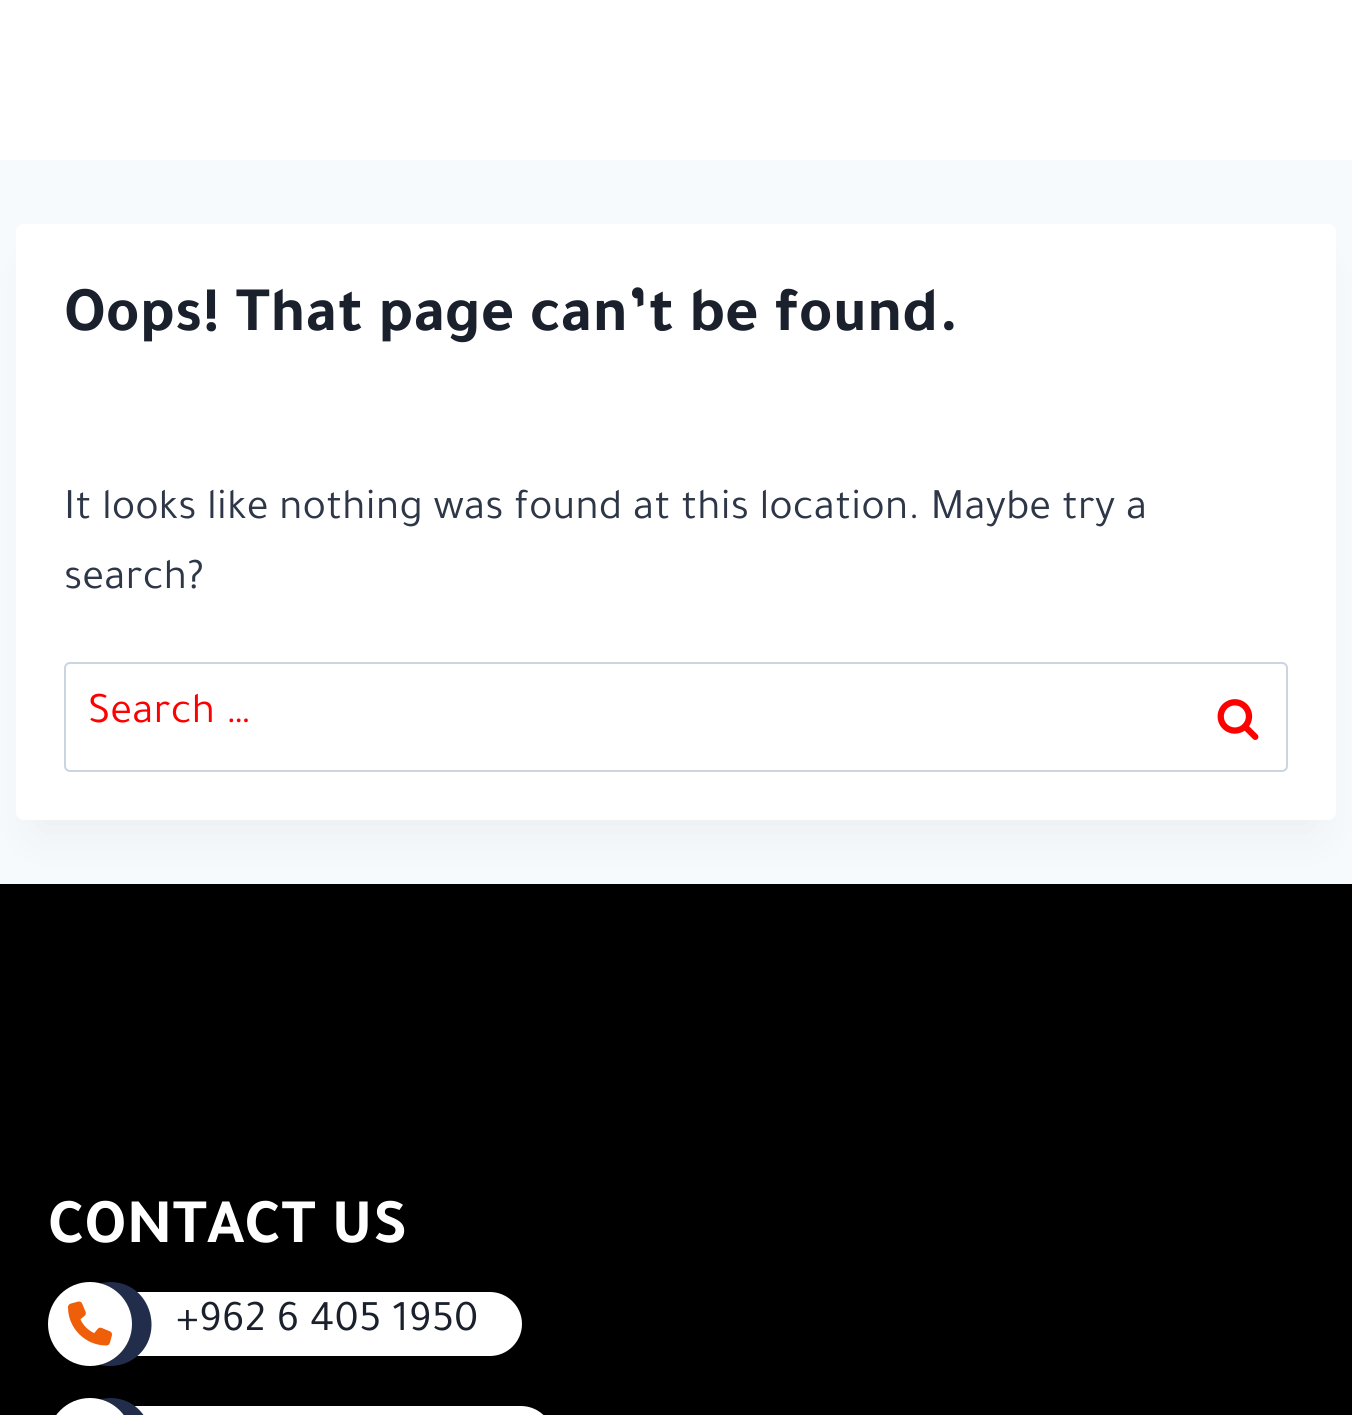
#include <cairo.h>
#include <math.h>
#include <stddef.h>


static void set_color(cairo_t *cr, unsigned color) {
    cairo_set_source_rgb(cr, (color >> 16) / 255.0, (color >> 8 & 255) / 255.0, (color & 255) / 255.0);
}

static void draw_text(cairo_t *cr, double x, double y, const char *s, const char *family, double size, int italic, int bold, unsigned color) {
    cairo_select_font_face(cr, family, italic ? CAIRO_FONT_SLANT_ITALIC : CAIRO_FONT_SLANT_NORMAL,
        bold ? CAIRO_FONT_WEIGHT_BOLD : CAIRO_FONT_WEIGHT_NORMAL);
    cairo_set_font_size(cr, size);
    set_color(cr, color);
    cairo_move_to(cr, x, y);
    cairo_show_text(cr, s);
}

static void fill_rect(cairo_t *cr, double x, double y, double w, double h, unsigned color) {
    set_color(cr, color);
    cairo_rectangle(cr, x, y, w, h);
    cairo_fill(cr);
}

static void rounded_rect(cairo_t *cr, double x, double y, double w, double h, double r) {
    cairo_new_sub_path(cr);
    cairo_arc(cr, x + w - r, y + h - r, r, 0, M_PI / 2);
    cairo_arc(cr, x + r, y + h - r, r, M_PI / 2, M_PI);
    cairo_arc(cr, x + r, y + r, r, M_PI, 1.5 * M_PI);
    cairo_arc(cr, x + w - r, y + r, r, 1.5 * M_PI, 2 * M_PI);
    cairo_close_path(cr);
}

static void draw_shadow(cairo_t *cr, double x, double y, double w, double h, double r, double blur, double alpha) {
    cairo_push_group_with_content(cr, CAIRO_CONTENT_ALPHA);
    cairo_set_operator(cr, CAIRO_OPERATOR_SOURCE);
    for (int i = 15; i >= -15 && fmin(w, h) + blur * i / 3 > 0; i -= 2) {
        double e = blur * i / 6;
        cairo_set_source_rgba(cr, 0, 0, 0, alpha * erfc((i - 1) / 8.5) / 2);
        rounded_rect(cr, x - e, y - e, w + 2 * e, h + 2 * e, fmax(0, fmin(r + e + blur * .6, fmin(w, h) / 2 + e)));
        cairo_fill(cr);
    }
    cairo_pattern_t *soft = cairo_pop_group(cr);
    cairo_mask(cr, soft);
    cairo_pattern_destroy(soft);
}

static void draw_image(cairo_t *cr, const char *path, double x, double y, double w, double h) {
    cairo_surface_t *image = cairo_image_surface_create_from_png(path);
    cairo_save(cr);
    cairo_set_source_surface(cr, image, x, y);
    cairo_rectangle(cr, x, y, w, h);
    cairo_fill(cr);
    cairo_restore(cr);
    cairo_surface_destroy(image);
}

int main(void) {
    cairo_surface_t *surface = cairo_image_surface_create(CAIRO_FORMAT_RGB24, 1352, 1415);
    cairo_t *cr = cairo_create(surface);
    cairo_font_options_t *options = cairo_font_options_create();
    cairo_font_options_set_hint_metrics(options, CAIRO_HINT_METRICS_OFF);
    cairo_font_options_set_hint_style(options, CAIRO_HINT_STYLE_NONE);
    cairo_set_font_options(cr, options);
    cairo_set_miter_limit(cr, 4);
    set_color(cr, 0xF7FAFC);
    cairo_paint(cr);
    fill_rect(cr, 0, 0, 1352, 160, 0xFFFFFF);
    set_color(cr, 0x000000);
    draw_shadow(cr, 36, 274, 1280, 556, 0, 25, 0.05);
    set_color(cr, 0xFFFFFF);
    rounded_rect(cr, 16, 224, 1320, 596, 8);
    cairo_fill(cr);
    draw_text(cr, 64, 330, "Oops! That page can’t be found.", "Tajawal", 64, 0, 1, 0x1A202C);
    draw_text(cr, 64, 518, "It looks like nothing was found at this location. Maybe try a", "Tajawal", 44, 0, 0, 0x2D3748);
    draw_text(cr, 64, 588, "search?", "Tajawal", 44, 0, 0, 0x2D3748);
    rounded_rect(cr, 65, 663, 1222, 108, 5);
    set_color(cr, 0xCBD5E0);
    cairo_stroke(cr);
    draw_text(cr, 88, 722, "Search …", "Tajawal", 44, 0, 0, 0xFF0000);
    draw_image(cr, "assets/img1.png", 1217, 699, 42, 41);
    fill_rect(cr, 0, 884, 1352, 531, 0x000000);
    draw_text(cr, 48, 1242, "CONTACT US", "Tajawal", 64, 0, 1, 0xFFFFFF);
    cairo_new_path(cr);
    cairo_move_to(cr, 132, 1292);
    cairo_line_to(cr, 490, 1292);
    cairo_curve_to(cr, 507.5, 1292, 522, 1306.5, 522, 1324);
    cairo_curve_to(cr, 522, 1341.5, 507.5, 1356, 490, 1356);
    cairo_line_to(cr, 132, 1356);
    cairo_close_path(cr);
    cairo_fill(cr);
    set_color(cr, 0x212D4B);
    cairo_new_path(cr);
    cairo_move_to(cr, 110, 1282);
    cairo_line_to(cr, 100, 1283);
    cairo_curve_to(cr, 142, 1294, 142, 1354, 100, 1365);
    cairo_curve_to(cr, 109, 1367, 118, 1366, 126, 1363);
    cairo_curve_to(cr, 168, 1345, 155, 1282, 110, 1282);
    cairo_close_path(cr);
    cairo_fill(cr);
    set_color(cr, 0xFFFFFF);
    cairo_arc(cr, 90, 1324, 42, 0, 2 * M_PI);
    cairo_fill(cr);
    draw_image(cr, "assets/img2.png", 68, 1301, 44, 45);
    draw_text(cr, 176, 1330, "+962 6 405 1950", "Tajawal", 44, 0, 0, 0x1A202C);
    set_color(cr, 0xFFFFFF);
    cairo_new_path(cr);
    cairo_move_to(cr, 132, 1406);
    cairo_line_to(cr, 521, 1406);
    cairo_curve_to(cr, 539, 1406, 554, 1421, 554, 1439);
    cairo_line_to(cr, 554, 1415);
    cairo_curve_to(cr, 554, 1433, 539, 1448, 521, 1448);
    cairo_line_to(cr, 132, 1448);
    cairo_close_path(cr);
    cairo_fill(cr);
    set_color(cr, 0x212D4B);
    cairo_new_path(cr);
    cairo_move_to(cr, 110, 1398);
    cairo_line_to(cr, 100, 1399);
    cairo_curve_to(cr, 142, 1410, 142, 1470, 100, 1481);
    cairo_curve_to(cr, 109, 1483, 118, 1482, 126, 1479);
    cairo_curve_to(cr, 168, 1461, 155, 1398, 110, 1398);
    cairo_close_path(cr);
    cairo_fill(cr);
    set_color(cr, 0xFFFFFF);
    rounded_rect(cr, 48, 1398, 84, 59, 42);
    cairo_fill(cr);
    cairo_surface_write_to_png(surface, "output.png");
    cairo_font_options_destroy(options);
    cairo_destroy(cr);
    cairo_surface_destroy(surface);
    return 0;
}
